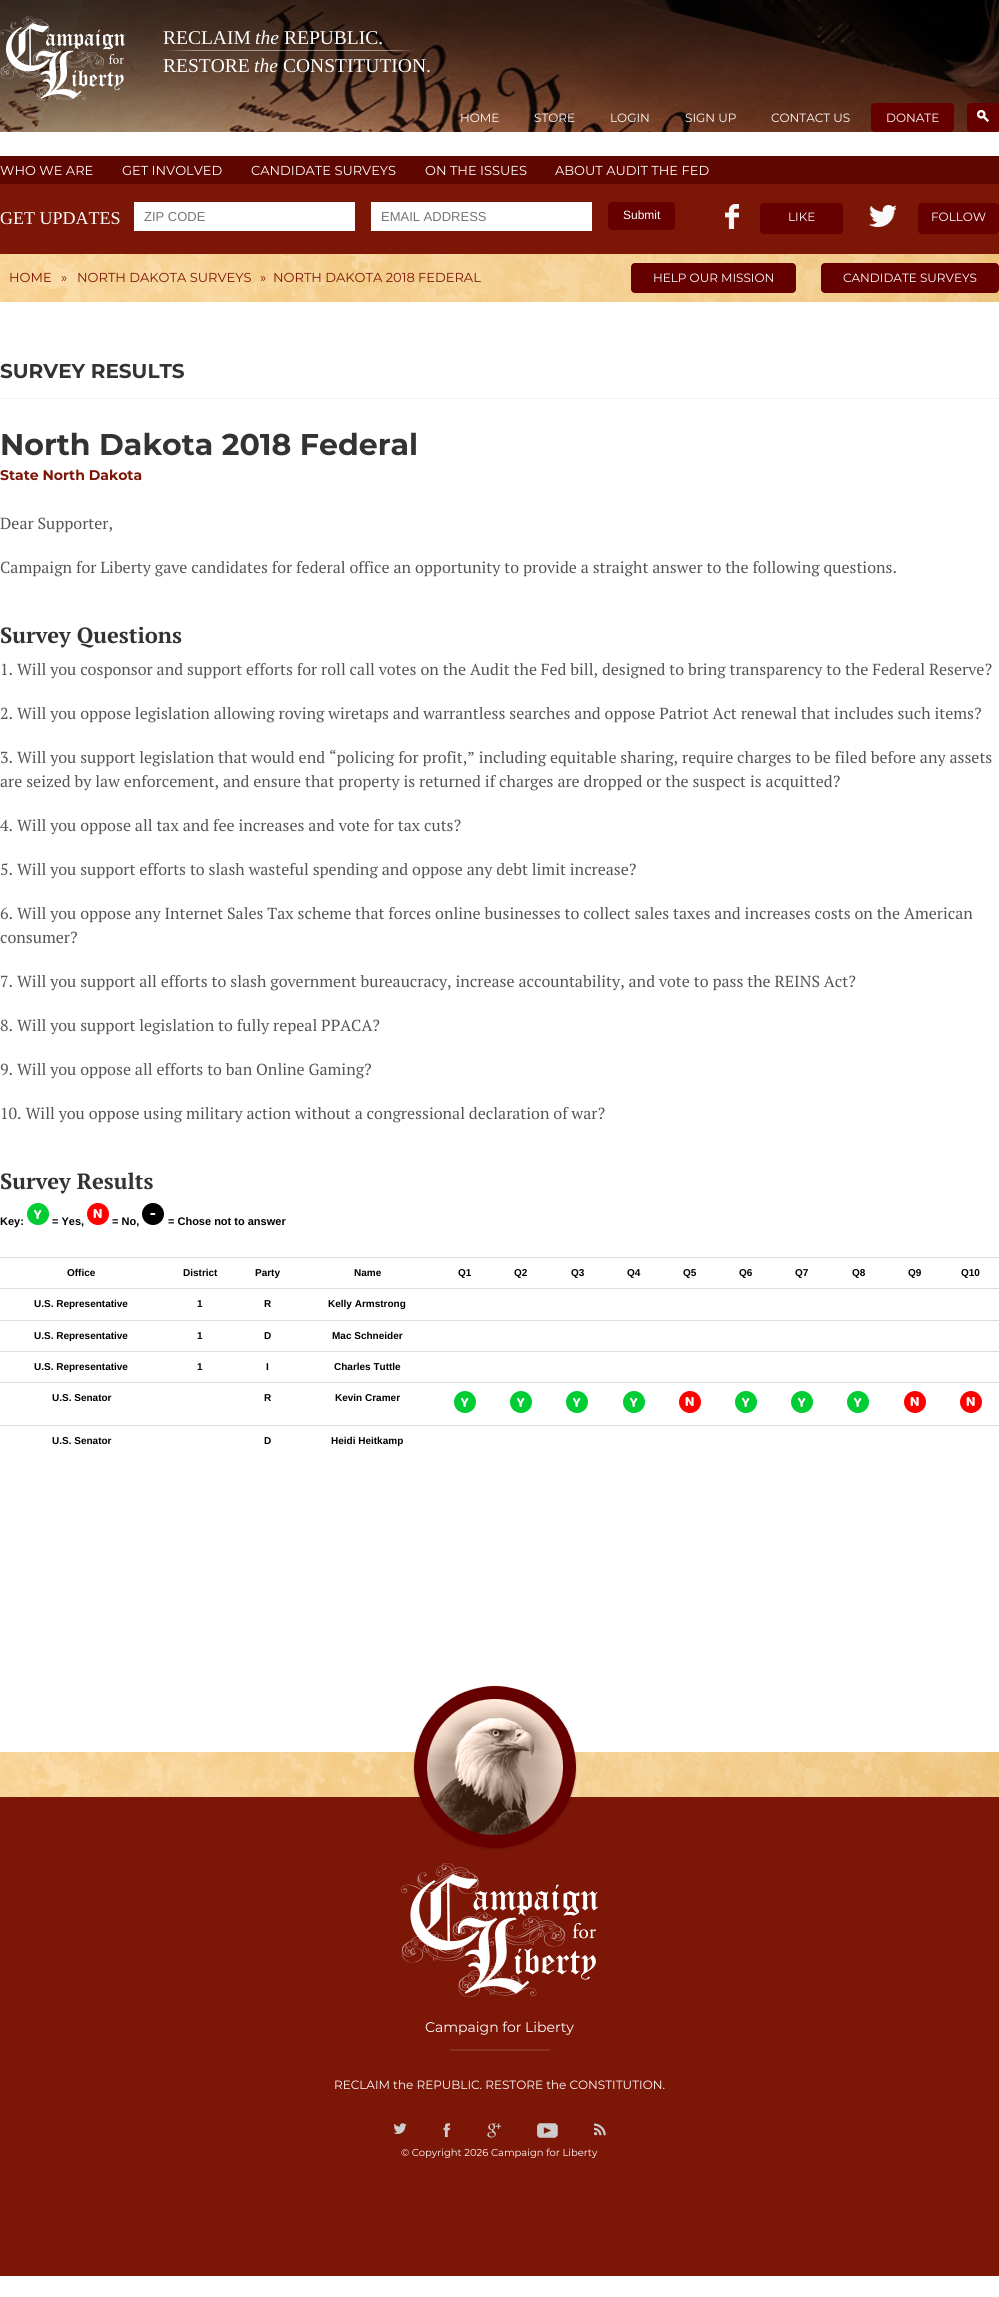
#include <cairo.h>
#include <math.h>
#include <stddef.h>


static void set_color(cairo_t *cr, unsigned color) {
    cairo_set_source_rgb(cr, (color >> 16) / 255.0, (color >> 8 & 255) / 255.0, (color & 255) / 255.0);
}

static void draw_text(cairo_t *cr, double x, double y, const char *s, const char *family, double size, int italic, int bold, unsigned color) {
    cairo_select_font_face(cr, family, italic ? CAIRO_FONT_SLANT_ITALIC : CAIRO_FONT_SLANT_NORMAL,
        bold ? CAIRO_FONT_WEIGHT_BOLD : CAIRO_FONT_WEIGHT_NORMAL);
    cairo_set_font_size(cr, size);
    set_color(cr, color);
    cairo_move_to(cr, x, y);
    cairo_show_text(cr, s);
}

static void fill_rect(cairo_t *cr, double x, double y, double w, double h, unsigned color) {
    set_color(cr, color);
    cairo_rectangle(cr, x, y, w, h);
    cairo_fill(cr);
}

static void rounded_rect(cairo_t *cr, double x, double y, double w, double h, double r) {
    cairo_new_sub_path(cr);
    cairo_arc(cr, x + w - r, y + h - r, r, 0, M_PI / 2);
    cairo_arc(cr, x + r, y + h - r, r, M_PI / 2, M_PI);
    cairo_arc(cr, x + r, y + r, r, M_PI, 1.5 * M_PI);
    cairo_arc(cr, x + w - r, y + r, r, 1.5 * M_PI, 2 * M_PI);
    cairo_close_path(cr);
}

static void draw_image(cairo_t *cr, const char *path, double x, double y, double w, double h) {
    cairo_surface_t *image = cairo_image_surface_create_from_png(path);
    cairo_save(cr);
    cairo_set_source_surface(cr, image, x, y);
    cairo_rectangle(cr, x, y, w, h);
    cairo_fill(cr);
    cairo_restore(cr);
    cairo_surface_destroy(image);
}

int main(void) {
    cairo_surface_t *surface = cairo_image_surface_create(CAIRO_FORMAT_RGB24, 999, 2297);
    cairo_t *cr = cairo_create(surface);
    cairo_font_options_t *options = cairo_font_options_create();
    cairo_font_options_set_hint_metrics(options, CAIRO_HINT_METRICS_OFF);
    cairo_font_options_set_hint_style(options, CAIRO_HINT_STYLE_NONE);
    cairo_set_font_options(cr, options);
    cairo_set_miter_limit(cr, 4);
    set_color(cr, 0xFFFFFF);
    cairo_paint(cr);
    draw_image(cr, "assets/img1.png", 0, 0, 999, 132);
    draw_image(cr, "assets/img2.png", 0, 16, 125, 85);
    draw_image(cr, "assets/img3.png", 164, 50, 252, 1);
    draw_text(cr, 163, 44, "RECLAIM", "Liberation Serif", 19.5, 0, 0, 0xFFFFFF);
    draw_text(cr, 255, 44, "the", "Liberation Serif", 19.5, 1, 0, 0xFFFFFF);
    draw_text(cr, 284, 44, "REPUBLIC.", "Liberation Serif", 19.5, 0, 0, 0xFFFFFF);
    draw_text(cr, 163, 72, "RESTORE", "Liberation Serif", 19.5, 0, 0, 0xFFFFFF);
    draw_text(cr, 254, 72, "the", "Liberation Serif", 19.5, 1, 0, 0xFFFFFF);
    draw_text(cr, 283, 72, "CONSTITUTION.", "Liberation Serif", 19.5, 0, 0, 0xFFFFFF);
    draw_text(cr, 460, 122, "HOME", "Montserrat", 12, 0, 0, 0xFFFFFF);
    draw_text(cr, 534, 122, "STORE", "Montserrat", 12, 0, 0, 0xFFFFFF);
    draw_text(cr, 610, 122, "LOGIN", "Montserrat", 12, 0, 0, 0xFFFFFF);
    draw_text(cr, 685, 122, "SIGN UP", "Montserrat", 12, 0, 0, 0xFFFFFF);
    draw_text(cr, 771, 122, "CONTACT US", "Montserrat", 12, 0, 0, 0xFFFFFF);
    set_color(cr, 0x660000);
    rounded_rect(cr, 871, 103, 83, 29, 4);
    cairo_fill(cr);
    draw_text(cr, 886, 122, "DONATE", "Montserrat", 12, 0, 0, 0xFFFFFF);
    set_color(cr, 0x660000);
    rounded_rect(cr, 967, 103, 32, 29, 4);
    cairo_fill(cr);
    draw_image(cr, "assets/img4.png", 977, 110, 12, 12);
    fill_rect(cr, 0, 156, 999, 28, 0x600600);
    draw_text(cr, 0, 175, "WHO WE ARE", "Montserrat", 13, 0, 0, 0xFFFFFF);
    draw_text(cr, 122, 175, "GET INVOLVED", "Montserrat", 13, 0, 0, 0xFFFFFF);
    draw_text(cr, 251, 175, "CANDIDATE SURVEYS", "Montserrat", 13, 0, 0, 0xFFFFFF);
    draw_text(cr, 425, 175, "ON THE ISSUES", "Montserrat", 13, 0, 0, 0xFFFFFF);
    draw_text(cr, 555, 175, "ABOUT AUDIT THE FED", "Montserrat", 13, 0, 0, 0xFFFFFF);
    fill_rect(cr, 0, 184, 999, 70, 0x7C1607);
    draw_text(cr, 0, 224, "GET UPDATES", "Liberation Serif", 18, 0, 0, 0xFFFFFF);
    fill_rect(cr, 134, 202, 221, 29, 0xFFFFFF);
    draw_text(cr, 144, 221, "ZIP CODE", "Liberation Sans", 13, 0, 0, 0x757575);
    fill_rect(cr, 371, 202, 221, 29, 0xFFFFFF);
    draw_text(cr, 381, 221, "EMAIL ADDRESS", "Liberation Sans", 13, 0, 0, 0x757575);
    set_color(cr, 0x660000);
    rounded_rect(cr, 608, 202, 67, 28, 4);
    cairo_fill(cr);
    draw_text(cr, 623, 219, "Submit", "Liberation Sans", 12, 0, 0, 0xFFFFFF);
    draw_image(cr, "assets/img5.png", 725, 204, 14, 25);
    set_color(cr, 0x660000);
    rounded_rect(cr, 760, 203, 83, 31, 4);
    cairo_fill(cr);
    draw_text(cr, 788, 221, "LIKE", "Montserrat", 12, 0, 0, 0xFFFFFF);
    draw_image(cr, "assets/img6.png", 869, 205, 27, 22);
    set_color(cr, 0x660000);
    rounded_rect(cr, 918, 203, 81, 31, 4);
    cairo_fill(cr);
    draw_text(cr, 931, 221, "FOLLOW", "Montserrat", 12, 0, 0, 0xFFFFFF);
    draw_image(cr, "assets/img7.png", 0, 254, 999, 48);
    draw_text(cr, 9, 282, "HOME", "Montserrat", 13, 0, 0, 0x7C1607);
    draw_text(cr, 61, 282, "»", "Montserrat", 13, 0, 0, 0x7C1607);
    draw_text(cr, 77, 282, "NORTH DAKOTA SURVEYS", "Montserrat", 13, 0, 0, 0x7C1607);
    draw_text(cr, 260, 282, "»", "Montserrat", 13, 0, 0, 0x7C1607);
    draw_text(cr, 273, 282, "NORTH DAKOTA 2018 FEDERAL", "Montserrat", 13, 0, 0, 0x7C1607);
    set_color(cr, 0x660000);
    rounded_rect(cr, 631, 263, 165, 30, 4);
    cairo_fill(cr);
    draw_text(cr, 653, 282, "HELP OUR MISSION", "Montserrat", 12, 0, 0, 0xFFFFFF);
    set_color(cr, 0x660000);
    rounded_rect(cr, 821, 263, 178, 30, 4);
    cairo_fill(cr);
    draw_text(cr, 843, 282, "CANDIDATE SURVEYS", "Montserrat", 12, 0, 0, 0xFFFFFF);
    fill_rect(cr, 0, 398, 999, 1, 0xF2F2F2);
    draw_text(cr, 0, 378, "SURVEY RESULTS", "Montserrat", 20, 0, 1, 0x333333);
    draw_text(cr, 0, 455, "North Dakota 2018 Federal", "Montserrat", 30, 0, 1, 0x333333);
    draw_text(cr, 0, 480, "State North Dakota", "Montserrat", 14, 0, 1, 0x7C1607);
    draw_text(cr, 0, 529, "Dear Supporter,", "PT Serif", 16, 0, 0, 0x555555);
    draw_text(cr, 0, 573, "Campaign for Liberty gave candidates for federal office an opportunity to provide a straight answer to the following questions.", "PT Serif", 16, 0, 0, 0x555555);
    draw_text(cr, 0, 643, "Survey Questions", "PT Serif", 22, 0, 1, 0x333333);
    draw_text(cr, 0, 675, "1. Will you cosponsor and support efforts for roll call votes on the Audit the Fed bill, designed to bring transparency to the Federal Reserve?", "PT Serif", 16, 0, 0, 0x555555);
    draw_text(cr, 0, 719, "2. Will you oppose legislation allowing roving wiretaps and warrantless searches and oppose Patriot Act renewal that includes such items?", "PT Serif", 16, 0, 0, 0x555555);
    draw_text(cr, 0, 763, "3. Will you support legislation that would end “policing for profit,” including equitable sharing, require charges to be filed before any assets", "PT Serif", 16, 0, 0, 0x555555);
    draw_text(cr, 0, 787, "are seized by law enforcement, and ensure that property is returned if charges are dropped or the suspect is acquitted?", "PT Serif", 16, 0, 0, 0x555555);
    draw_text(cr, 0, 831, "4. Will you oppose all tax and fee increases and vote for tax cuts?", "PT Serif", 16, 0, 0, 0x555555);
    draw_text(cr, 0, 875, "5. Will you support efforts to slash wasteful spending and oppose any debt limit increase?", "PT Serif", 16, 0, 0, 0x555555);
    draw_text(cr, 0, 919, "6. Will you oppose any Internet Sales Tax scheme that forces online businesses to collect sales taxes and increases costs on the American", "PT Serif", 16, 0, 0, 0x555555);
    draw_text(cr, 0, 943, "consumer?", "PT Serif", 16, 0, 0, 0x555555);
    draw_text(cr, 0, 987, "7. Will you support all efforts to slash government bureaucracy, increase accountability, and vote to pass the REINS Act?", "PT Serif", 16, 0, 0, 0x555555);
    draw_text(cr, 0, 1031, "8. Will you support legislation to fully repeal PPACA?", "PT Serif", 16, 0, 0, 0x555555);
    draw_text(cr, 0, 1075, "9. Will you oppose all efforts to ban Online Gaming?", "PT Serif", 16, 0, 0, 0x555555);
    draw_text(cr, 0, 1119, "10. Will you oppose using military action without a congressional declaration of war?", "PT Serif", 16, 0, 0, 0x555555);
    draw_text(cr, 0, 1189, "Survey Results", "PT Serif", 22, 0, 1, 0x333333);
    draw_text(cr, 0, 1225, "Key:", "Liberation Sans", 11, 0, 1, 0x000000);
    draw_image(cr, "assets/img8.png", 27, 1203, 22, 22);
    draw_text(cr, 52, 1225, "= Yes,", "Liberation Sans", 11, 0, 1, 0x000000);
    draw_image(cr, "assets/img9.png", 87, 1203, 22, 22);
    draw_text(cr, 112, 1225, "= No,", "Liberation Sans", 11, 0, 1, 0x000000);
    draw_image(cr, "assets/img10.png", 142, 1203, 22, 22);
    draw_text(cr, 168, 1225, "= Chose not to answer", "Liberation Sans", 11, 0, 1, 0x000000);
    draw_text(cr, 67, 1276, "Office", "Liberation Sans", 10, 0, 1, 0x000000);
    draw_text(cr, 183, 1276, "District", "Liberation Sans", 10, 0, 1, 0x000000);
    draw_text(cr, 255, 1276, "Party", "Liberation Sans", 10, 0, 1, 0x000000);
    draw_text(cr, 354, 1276, "Name", "Liberation Sans", 10, 0, 1, 0x000000);
    draw_text(cr, 458, 1276, "Q1", "Liberation Sans", 10, 0, 1, 0x000000);
    draw_text(cr, 514, 1276, "Q2", "Liberation Sans", 10, 0, 1, 0x000000);
    draw_text(cr, 571, 1276, "Q3", "Liberation Sans", 10, 0, 1, 0x000000);
    draw_text(cr, 627, 1276, "Q4", "Liberation Sans", 10, 0, 1, 0x000000);
    draw_text(cr, 683, 1276, "Q5", "Liberation Sans", 10, 0, 1, 0x000000);
    draw_text(cr, 739, 1276, "Q6", "Liberation Sans", 10, 0, 1, 0x000000);
    draw_text(cr, 795, 1276, "Q7", "Liberation Sans", 10, 0, 1, 0x000000);
    draw_text(cr, 852, 1276, "Q8", "Liberation Sans", 10, 0, 1, 0x000000);
    draw_text(cr, 908, 1276, "Q9", "Liberation Sans", 10, 0, 1, 0x000000);
    fill_rect(cr, 0, 1257, 999, 1, 0xDDDDDD);
    draw_text(cr, 961, 1276, "Q10", "Liberation Sans", 10, 0, 1, 0x000000);
    fill_rect(cr, 0, 1288, 999, 1, 0xDDDDDD);
    draw_text(cr, 34, 1307, "U.S. Representative", "Liberation Sans", 10, 0, 1, 0x000000);
    draw_text(cr, 197, 1307, "1", "Liberation Sans", 10, 0, 1, 0x000000);
    draw_text(cr, 264, 1307, "R", "Liberation Sans", 10, 0, 1, 0x000000);
    draw_text(cr, 328, 1307, "Kelly Armstrong", "Liberation Sans", 10, 0, 1, 0x000000);
    fill_rect(cr, 0, 1320, 999, 1, 0xDDDDDD);
    draw_text(cr, 34, 1339, "U.S. Representative", "Liberation Sans", 10, 0, 1, 0x000000);
    draw_text(cr, 197, 1339, "1", "Liberation Sans", 10, 0, 1, 0x000000);
    draw_text(cr, 264, 1339, "D", "Liberation Sans", 10, 0, 1, 0x000000);
    draw_text(cr, 332, 1339, "Mac Schneider", "Liberation Sans", 10, 0, 1, 0x000000);
    fill_rect(cr, 0, 1351, 999, 1, 0xDDDDDD);
    draw_text(cr, 34, 1370, "U.S. Representative", "Liberation Sans", 10, 0, 1, 0x000000);
    draw_text(cr, 197, 1370, "1", "Liberation Sans", 10, 0, 1, 0x000000);
    draw_text(cr, 266, 1370, "I", "Liberation Sans", 10, 0, 1, 0x000000);
    draw_text(cr, 334, 1370, "Charles Tuttle", "Liberation Sans", 10, 0, 1, 0x000000);
    fill_rect(cr, 0, 1382, 999, 1, 0xDDDDDD);
    draw_image(cr, "assets/img9.png", 960, 1391, 22, 22);
    draw_text(cr, 52, 1401, "U.S. Senator", "Liberation Sans", 10, 0, 1, 0x000000);
    draw_text(cr, 264, 1401, "R", "Liberation Sans", 10, 0, 1, 0x000000);
    draw_text(cr, 335, 1401, "Kevin Cramer", "Liberation Sans", 10, 0, 1, 0x000000);
    draw_image(cr, "assets/img8.png", 454, 1391, 22, 22);
    draw_image(cr, "assets/img8.png", 510, 1391, 22, 22);
    draw_image(cr, "assets/img8.png", 566, 1391, 22, 22);
    draw_image(cr, "assets/img8.png", 623, 1391, 22, 22);
    draw_image(cr, "assets/img9.png", 679, 1391, 22, 22);
    draw_image(cr, "assets/img8.png", 735, 1391, 22, 22);
    draw_image(cr, "assets/img8.png", 791, 1391, 22, 22);
    draw_image(cr, "assets/img8.png", 847, 1391, 22, 22);
    draw_image(cr, "assets/img9.png", 904, 1391, 22, 22);
    fill_rect(cr, 0, 1425, 999, 1, 0xDDDDDD);
    draw_text(cr, 52, 1444, "U.S. Senator", "Liberation Sans", 10, 0, 1, 0x000000);
    draw_text(cr, 264, 1444, "D", "Liberation Sans", 10, 0, 1, 0x000000);
    draw_text(cr, 331, 1444, "Heidi Heitkamp", "Liberation Sans", 10, 0, 1, 0x000000);
    fill_rect(cr, 0, 1797, 999, 479, 0x7C1607);
    draw_image(cr, "assets/img12.png", 0, 1752, 999, 45);
    draw_image(cr, "assets/img11.png", 412, 1685, 166, 165);
    draw_image(cr, "assets/img13.png", 401, 1863, 197, 134);
    draw_text(cr, 425, 2032, "Campaign for Liberty", "Montserrat", 14, 0, 0, 0xFFFFFF);
    fill_rect(cr, 450, 2049, 100, 2, 0x892E20);
    draw_text(cr, 334, 2089, "RECLAIM the REPUBLIC. RESTORE the CONSTITUTION.", "Montserrat", 12, 0, 0, 0xFFFFFF);
    draw_image(cr, "assets/img14.png", 393, 2123, 14, 11);
    draw_image(cr, "assets/img15.png", 443, 2123, 7, 15);
    draw_image(cr, "assets/img16.png", 487, 2123, 14, 15);
    draw_image(cr, "assets/img17.png", 537, 2123, 21, 15);
    draw_image(cr, "assets/img18.png", 594, 2123, 12, 13);
    draw_text(cr, 401, 2156, "© Copyright 2026 Campaign for Liberty", "Montserrat", 10, 0, 0, 0xFFFFFF);
    cairo_surface_write_to_png(surface, "output.png");
    cairo_font_options_destroy(options);
    cairo_destroy(cr);
    cairo_surface_destroy(surface);
    return 0;
}
